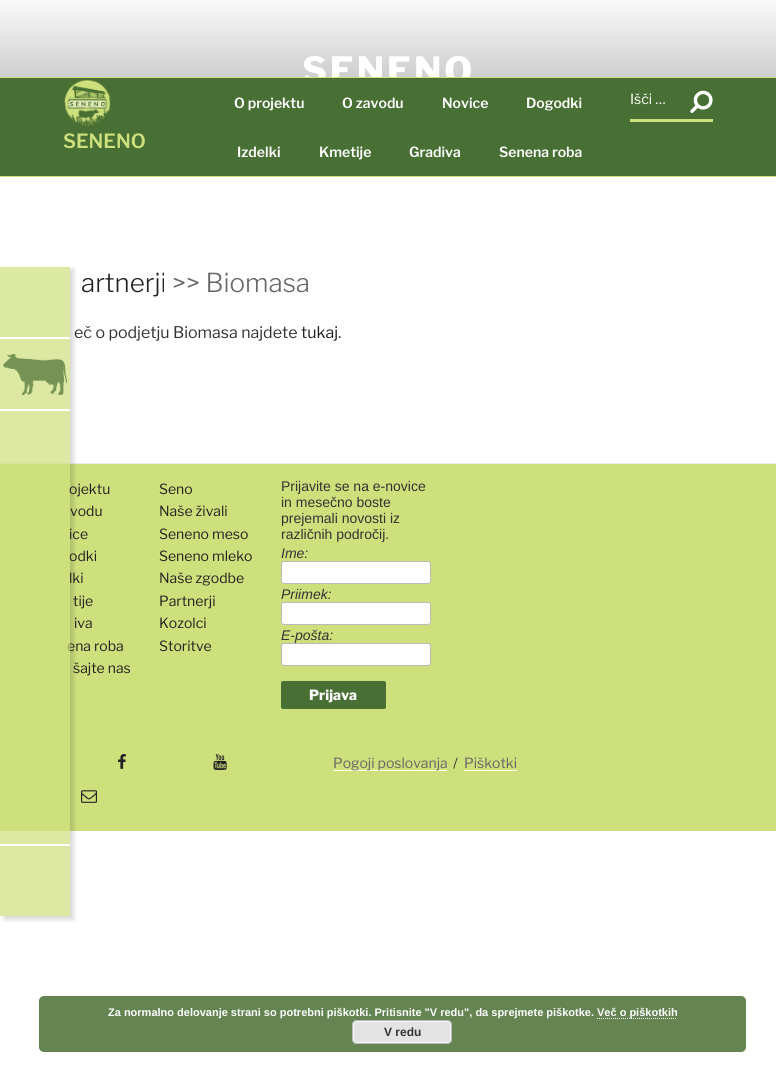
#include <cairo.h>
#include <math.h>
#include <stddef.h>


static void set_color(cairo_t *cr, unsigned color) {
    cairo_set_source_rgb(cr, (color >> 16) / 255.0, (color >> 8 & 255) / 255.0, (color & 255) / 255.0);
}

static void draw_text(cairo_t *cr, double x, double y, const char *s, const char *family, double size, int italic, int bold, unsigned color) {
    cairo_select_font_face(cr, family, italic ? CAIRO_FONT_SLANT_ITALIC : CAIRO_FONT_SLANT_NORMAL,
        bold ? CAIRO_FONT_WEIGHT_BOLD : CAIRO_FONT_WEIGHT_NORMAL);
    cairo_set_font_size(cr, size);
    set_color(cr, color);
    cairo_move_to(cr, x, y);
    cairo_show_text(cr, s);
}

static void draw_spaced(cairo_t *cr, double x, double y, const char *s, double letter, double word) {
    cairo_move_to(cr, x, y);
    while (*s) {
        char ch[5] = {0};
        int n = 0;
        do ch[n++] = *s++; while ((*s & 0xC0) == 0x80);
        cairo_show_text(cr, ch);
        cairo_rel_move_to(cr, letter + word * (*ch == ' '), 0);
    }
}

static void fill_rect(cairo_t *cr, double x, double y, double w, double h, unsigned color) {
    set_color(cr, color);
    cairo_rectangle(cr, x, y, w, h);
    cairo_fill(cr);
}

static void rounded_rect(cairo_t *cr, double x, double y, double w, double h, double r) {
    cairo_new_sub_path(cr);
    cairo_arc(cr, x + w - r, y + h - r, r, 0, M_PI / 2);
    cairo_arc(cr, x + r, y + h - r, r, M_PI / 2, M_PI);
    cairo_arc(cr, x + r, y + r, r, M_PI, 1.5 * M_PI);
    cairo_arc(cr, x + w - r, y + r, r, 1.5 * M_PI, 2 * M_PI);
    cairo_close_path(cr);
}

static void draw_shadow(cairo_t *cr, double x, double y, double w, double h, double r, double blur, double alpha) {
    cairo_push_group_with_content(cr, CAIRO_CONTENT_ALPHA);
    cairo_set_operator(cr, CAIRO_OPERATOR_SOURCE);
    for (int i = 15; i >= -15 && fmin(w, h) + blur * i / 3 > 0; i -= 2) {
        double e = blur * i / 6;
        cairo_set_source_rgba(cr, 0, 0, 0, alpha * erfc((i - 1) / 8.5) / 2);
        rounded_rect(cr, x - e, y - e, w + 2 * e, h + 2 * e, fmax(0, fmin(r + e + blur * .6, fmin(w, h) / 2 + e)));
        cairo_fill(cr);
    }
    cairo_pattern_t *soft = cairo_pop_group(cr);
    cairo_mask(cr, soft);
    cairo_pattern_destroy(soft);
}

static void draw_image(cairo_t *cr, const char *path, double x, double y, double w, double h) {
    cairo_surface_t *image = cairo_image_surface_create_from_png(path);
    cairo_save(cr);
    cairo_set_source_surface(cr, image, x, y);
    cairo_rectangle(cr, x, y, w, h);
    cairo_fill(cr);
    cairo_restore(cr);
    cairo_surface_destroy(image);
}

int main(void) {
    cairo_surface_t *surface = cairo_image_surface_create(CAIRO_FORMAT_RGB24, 776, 1082);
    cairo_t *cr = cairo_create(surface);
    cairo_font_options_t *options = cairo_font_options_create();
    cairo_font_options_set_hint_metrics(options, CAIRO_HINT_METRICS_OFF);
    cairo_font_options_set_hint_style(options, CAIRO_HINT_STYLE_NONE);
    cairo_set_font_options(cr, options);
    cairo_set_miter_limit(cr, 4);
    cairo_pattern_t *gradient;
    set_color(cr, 0xFFFFFF);
    cairo_paint(cr);
    fill_rect(cr, 0, 831, 70, 13, 0xDDE9A3);
    fill_rect(cr, 0, 411, 70, 52, 0xDDE9A3);
    gradient = cairo_pattern_create_linear(388, 0, 388, 177);
    cairo_pattern_add_color_stop_rgba(gradient, 0, 0.98, 0.98, 0.98, 1);
    cairo_pattern_add_color_stop_rgba(gradient, 0.75, 0.686, 0.686, 0.686, 1);
    cairo_pattern_add_color_stop_rgba(gradient, 1, 0.686, 0.686, 0.686, 1);
    cairo_set_source(cr, gradient);
    cairo_pattern_destroy(gradient);
    cairo_rectangle(cr, 0, 0, 776, 77);
    cairo_fill(cr);
    cairo_select_font_face(cr, "Libre Franklin ExtraBold", CAIRO_FONT_SLANT_NORMAL, CAIRO_FONT_WEIGHT_NORMAL);
    cairo_set_font_size(cr, 36);
    set_color(cr, 0xFFFFFF);
    draw_spaced(cr, 302, 83, "SENENO", 3, 0);
    fill_rect(cr, 0, 78, 776, 98, 0x497034);
    fill_rect(cr, 0, 77, 776, 1, 0xCEE07C);
    fill_rect(cr, 0, 176, 776, 1, 0xCEE07C);
    draw_image(cr, "assets/img1.png", 64, 79, 47, 47);
    draw_text(cr, 63, 148, "SENENO", "Libre Franklin SemiBold", 19.5, 0, 0, 0xCEE07C);
    draw_text(cr, 234, 108, "O projektu", "Libre Franklin SemiBold", 14, 0, 0, 0xFFFFFF);
    draw_text(cr, 342, 108, "O zavodu", "Libre Franklin SemiBold", 14, 0, 0, 0xFFFFFF);
    draw_text(cr, 442, 108, "Novice", "Libre Franklin SemiBold", 14, 0, 0, 0xFFFFFF);
    draw_text(cr, 526, 108, "Dogodki", "Libre Franklin SemiBold", 14, 0, 0, 0xFFFFFF);
    draw_text(cr, 237, 157, "Izdelki", "Libre Franklin SemiBold", 14, 0, 0, 0xFFFFFF);
    draw_text(cr, 319, 157, "Kmetije", "Libre Franklin SemiBold", 14, 0, 0, 0xFFFFFF);
    draw_text(cr, 409, 157, "Gradiva", "Libre Franklin SemiBold", 14, 0, 0, 0xFFFFFF);
    draw_text(cr, 499, 157, "Senena roba", "Libre Franklin SemiBold", 14, 0, 0, 0xFFFFFF);
    fill_rect(cr, 630, 119, 83, 3, 0xCEE07C);
    draw_text(cr, 630, 104, "Išči …", "Libre Franklin", 14, 0, 0, 0xFFFFFF);
    draw_image(cr, "assets/img2.png", 690, 90, 23, 23);
    fill_rect(cr, 0, 464, 776, 367, 0xCEE07C);
    fill_rect(cr, 70, 463, 706, 1, 0xEEEEEE);
    fill_rect(cr, 0, 463, 70, 1, 0xD8E49E);
    cairo_save(cr);
    cairo_set_fill_rule(cr, CAIRO_FILL_RULE_EVEN_ODD);
    cairo_new_path(cr);
    cairo_move_to(cr, 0, 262);
    cairo_line_to(cr, 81, 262);
    cairo_line_to(cr, 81, 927);
    cairo_line_to(cr, 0, 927);
    cairo_close_path(cr);
    cairo_move_to(cr, 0, 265);
    cairo_line_to(cr, 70, 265);
    cairo_line_to(cr, 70, 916);
    cairo_line_to(cr, 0, 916);
    cairo_close_path(cr);
    cairo_clip(cr);
    set_color(cr, 0x000000);
    draw_shadow(cr, 4, 269, 70, 651, 0, 2, 0.14);
    cairo_restore(cr);
    cairo_set_source_rgba(cr, 0.808, 0.878, 0.486, 0.7);
    cairo_rectangle(cr, 0, 267, 70, 70);
    cairo_fill(cr);
    fill_rect(cr, 0, 339, 70, 70, 0xDDE9A3);
    draw_image(cr, "assets/img3.png", 3, 354, 64, 41);
    draw_text(cr, 69, 539, "ice", "Libre Franklin", 14, 0, 0, 0x222222);
    cairo_set_source_rgba(cr, 0.808, 0.878, 0.486, 0.7);
    cairo_rectangle(cr, 69, 528, 1, 11);
    cairo_fill(cr);
    draw_text(cr, 69, 561, "odki", "Libre Franklin", 14, 0, 0, 0x222222);
    cairo_set_source_rgba(cr, 0.808, 0.878, 0.486, 0.7);
    cairo_rectangle(cr, 69, 556, 1, 3);
    cairo_fill(cr);
    draw_text(cr, 67, 651, "ena roba", "Libre Franklin", 14, 0, 0, 0x222222);
    cairo_set_source_rgba(cr, 0.808, 0.878, 0.486, 0.7);
    cairo_rectangle(cr, 67, 643, 3, 8);
    cairo_fill(cr);
    fill_rect(cr, 0, 846, 70, 70, 0xDDE9A3);
    draw_text(cr, 81, 292, "artnerji", "Libre Franklin Light", 26, 0, 0, 0x222222);
    draw_text(cr, 172, 292, ">> Biomasa", "Libre Franklin Light", 26, 0, 0, 0x666666);
    draw_text(cr, 74, 338, "eč o podjetju Biomasa najdete", "Libre Franklin", 16, 0, 0, 0x333333);
    draw_text(cr, 301, 338, "tukaj", "Libre Franklin", 16, 0, 0, 0x222222);
    draw_text(cr, 338, 338, ".", "Libre Franklin", 16, 0, 0, 0x333333);
    draw_text(cr, 69, 494, "ojektu", "Libre Franklin", 14, 0, 0, 0x222222);
    draw_text(cr, 70, 516, "vodu", "Libre Franklin", 14, 0, 0, 0x222222);
    draw_text(cr, 69, 583, "lki", "Libre Franklin", 14, 0, 0, 0x222222);
    draw_text(cr, 73, 606, "tije", "Libre Franklin", 14, 0, 0, 0x222222);
    draw_text(cr, 74, 628, "iva", "Libre Franklin", 14, 0, 0, 0x222222);
    draw_text(cr, 73, 673, "šajte nas", "Libre Franklin", 14, 0, 0, 0x222222);
    draw_text(cr, 159, 494, "Seno", "Libre Franklin", 14, 0, 0, 0x222222);
    draw_text(cr, 159, 516, "Naše živali", "Libre Franklin", 14, 0, 0, 0x222222);
    draw_text(cr, 159, 539, "Seneno meso", "Libre Franklin", 14, 0, 0, 0x222222);
    draw_text(cr, 159, 561, "Seneno mleko", "Libre Franklin", 14, 0, 0, 0x222222);
    draw_text(cr, 159, 583, "Naše zgodbe", "Libre Franklin", 14, 0, 0, 0x222222);
    draw_text(cr, 159, 606, "Partnerji", "Libre Franklin", 14, 0, 0, 0x222222);
    draw_text(cr, 159, 628, "Kozolci", "Libre Franklin", 14, 0, 0, 0x222222);
    draw_text(cr, 159, 651, "Storitve", "Libre Franklin", 14, 0, 0, 0x222222);
    draw_text(cr, 281, 491, "Prijavite se na e-novice", "Liberation Sans", 14, 0, 0, 0x333333);
    draw_text(cr, 281, 507, "in mesečno boste", "Liberation Sans", 14, 0, 0, 0x333333);
    draw_text(cr, 281, 523, "prejemali novosti iz", "Liberation Sans", 14, 0, 0, 0x333333);
    draw_text(cr, 281, 539, "različnih področij.", "Liberation Sans", 14, 0, 0, 0x333333);
    draw_text(cr, 281, 558, "Ime:", "Liberation Sans", 14, 1, 0, 0x333333);
    set_color(cr, 0xFFFFFF);
    rounded_rect(cr, 281.5, 561.5, 149, 22, 2.5);
    cairo_fill_preserve(cr);
    set_color(cr, 0xBBBBBB);
    cairo_set_line_width(cr, 1);
    cairo_stroke(cr);
    draw_text(cr, 281, 599, "Priimek:", "Liberation Sans", 14, 1, 0, 0x333333);
    set_color(cr, 0xFFFFFF);
    rounded_rect(cr, 281.5, 602.5, 149, 22, 2.5);
    cairo_fill_preserve(cr);
    set_color(cr, 0xBBBBBB);
    cairo_stroke(cr);
    draw_text(cr, 281, 640, "E-pošta:", "Liberation Sans", 14, 1, 0, 0x333333);
    set_color(cr, 0xFFFFFF);
    rounded_rect(cr, 281.5, 643.5, 149, 22, 2.5);
    cairo_fill_preserve(cr);
    set_color(cr, 0xBBBBBB);
    cairo_stroke(cr);
    set_color(cr, 0x497034);
    rounded_rect(cr, 281, 681, 105, 28, 2);
    cairo_fill(cr);
    draw_text(cr, 309, 700, "Prijava", "Libre Franklin ExtraBold", 14, 0, 0, 0xFFFFFF);
    draw_image(cr, "assets/img4.png", 118, 754, 8, 15);
    draw_image(cr, "assets/img5.png", 213, 754, 14, 16);
    draw_image(cr, "assets/img6.png", 81, 790, 16, 13);
    fill_rect(cr, 333, 770, 114, 1, 0xFFFFFF);
    draw_text(cr, 333, 768, "Pogoji poslovanja", "Libre Franklin", 14, 0, 0, 0x666666);
    draw_text(cr, 453, 768, "/", "Libre Franklin", 14, 0, 0, 0x333333);
    draw_text(cr, 464, 768, "Piškotki", "Libre Franklin", 14, 0, 0, 0x666666);
    fill_rect(cr, 464, 770, 53, 1, 0xFFFFFF);
    set_color(cr, 0x648552);
    rounded_rect(cr, 39, 996, 707, 56, 5);
    cairo_fill(cr);
    draw_text(cr, 108, 1016, "Za normalno delovanje strani so potrebni piškotki. Pritisnite \"V redu\", da sprejmete piškotke.", "Liberation Sans", 11, 0, 1, 0xFFFFFF);
    cairo_new_path(cr);
    cairo_move_to(cr, 597, 1018.5);
    cairo_line_to(cr, 677, 1018.5);
    cairo_set_dash(cr, (double[]){1, 1}, 2, 0);
    cairo_stroke(cr);
    draw_text(cr, 597, 1016, "Več o piškotkih", "Liberation Sans", 11, 0, 1, 0xFFFFFF);
    set_color(cr, 0xE3E3E3);
    rounded_rect(cr, 352, 1020, 100, 24, 5);
    cairo_fill(cr);
    rounded_rect(cr, 353.5, 1021.5, 97, 21, 3.5);
    set_color(cr, 0xF6F6F6);
    cairo_set_dash(cr, NULL, 0, 0);
    cairo_stroke(cr);
    rounded_rect(cr, 352.5, 1020.5, 99, 23, 4.5);
    set_color(cr, 0xBBBBBB);
    cairo_stroke(cr);
    draw_text(cr, 384, 1036, "V redu", "Liberation Sans", 12, 0, 1, 0x333333);
    cairo_surface_write_to_png(surface, "output.png");
    cairo_font_options_destroy(options);
    cairo_destroy(cr);
    cairo_surface_destroy(surface);
    return 0;
}
